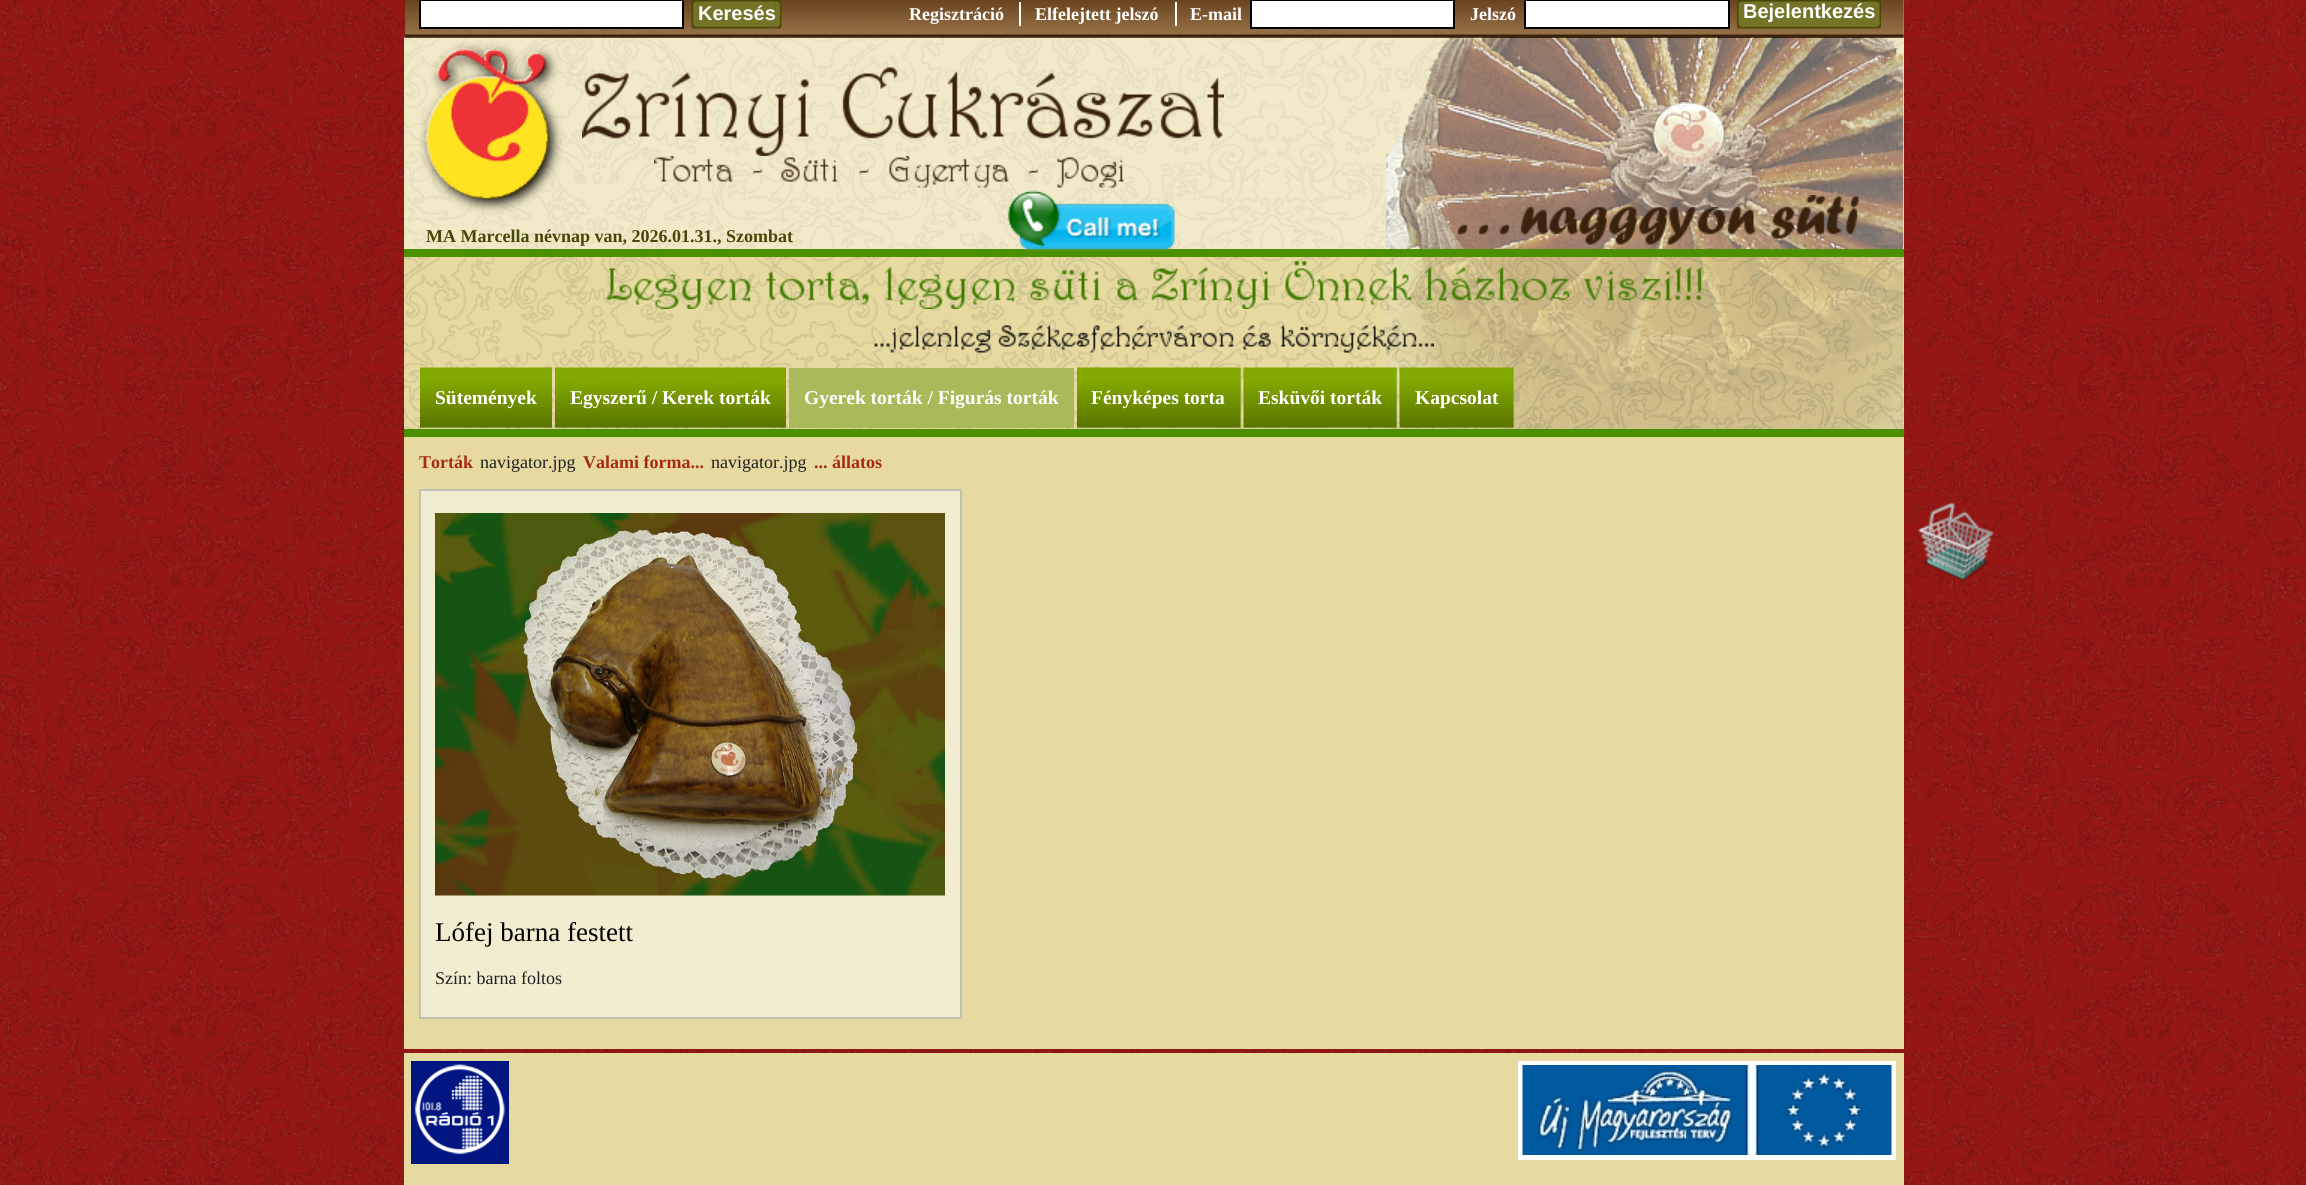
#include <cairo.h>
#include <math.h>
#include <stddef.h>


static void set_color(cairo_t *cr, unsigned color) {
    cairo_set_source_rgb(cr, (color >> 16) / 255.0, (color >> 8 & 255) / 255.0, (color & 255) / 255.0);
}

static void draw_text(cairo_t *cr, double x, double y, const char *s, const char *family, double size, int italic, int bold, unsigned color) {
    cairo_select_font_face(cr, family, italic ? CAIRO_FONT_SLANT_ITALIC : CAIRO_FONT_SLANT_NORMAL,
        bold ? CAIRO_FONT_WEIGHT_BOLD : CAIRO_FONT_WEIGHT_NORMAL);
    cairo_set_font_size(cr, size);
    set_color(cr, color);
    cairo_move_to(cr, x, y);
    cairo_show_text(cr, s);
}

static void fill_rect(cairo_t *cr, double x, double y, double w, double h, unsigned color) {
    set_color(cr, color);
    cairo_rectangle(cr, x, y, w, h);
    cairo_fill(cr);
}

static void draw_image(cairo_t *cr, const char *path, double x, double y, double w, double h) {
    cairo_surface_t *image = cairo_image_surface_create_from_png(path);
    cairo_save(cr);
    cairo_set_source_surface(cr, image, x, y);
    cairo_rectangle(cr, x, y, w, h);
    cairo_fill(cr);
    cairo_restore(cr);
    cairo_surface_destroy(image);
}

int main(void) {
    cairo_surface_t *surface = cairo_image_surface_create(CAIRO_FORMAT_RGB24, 2306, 1185);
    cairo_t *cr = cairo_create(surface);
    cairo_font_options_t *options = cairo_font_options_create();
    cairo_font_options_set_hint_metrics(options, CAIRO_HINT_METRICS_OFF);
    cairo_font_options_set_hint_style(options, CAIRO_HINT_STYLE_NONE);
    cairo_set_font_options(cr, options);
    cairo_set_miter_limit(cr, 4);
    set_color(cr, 0x941714);
    cairo_paint(cr);
    draw_image(cr, "assets/img1.png", 0, 0, 2306, 1185);
    fill_rect(cr, 404, 0, 1500, 429, 0xE7DAA1);
    draw_image(cr, "assets/img5.png", 1386, 37, 518, 392);
    draw_image(cr, "assets/img2.png", 403, 0, 1501, 38);
    cairo_set_source_rgba(cr, 1, 1, 1, 0.4);
    cairo_rectangle(cr, 404, 38, 1500, 211);
    cairo_fill(cr);
    draw_image(cr, "assets/img3.png", 404, 38, 1500, 211);
    cairo_set_source_rgba(cr, 0.906, 0.855, 0.631, 0.8);
    cairo_rectangle(cr, 1386, 257, 518, 172);
    cairo_fill(cr);
    draw_image(cr, "assets/img4.png", 403, 257, 1501, 172);
    draw_image(cr, "assets/img6.png", 403, 0, 1501, 38);
    set_color(cr, 0xFFFFFF);
    cairo_rectangle(cr, 420, 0, 263, 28);
    cairo_fill_preserve(cr);
    set_color(cr, 0x000000);
    cairo_stroke(cr);
    draw_image(cr, "assets/img7.png", 691, 0, 7, 29);
    draw_image(cr, "assets/img8.png", 697, 0, 79, 29);
    draw_text(cr, 698, 20, "Keresés", "Liberation Sans", 20, 0, 1, 0xFFFFFF);
    draw_image(cr, "assets/img9.png", 775, 0, 7, 29);
    fill_rect(cr, 1019, 2, 2, 24, 0xFFFFFF);
    draw_text(cr, 909, 20, "Regisztráció", "Liberation Serif", 18, 0, 1, 0xFFFFFF);
    fill_rect(cr, 1175, 2, 2, 24, 0xFFFFFF);
    draw_text(cr, 1035, 20, "Elfelejtett jelszó", "Liberation Serif", 18, 0, 1, 0xFFFFFF);
    draw_text(cr, 1190, 20, "E-mail", "Liberation Serif", 18, 0, 1, 0xFFFFFF);
    cairo_rectangle(cr, 1251, 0, 203, 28);
    cairo_fill_preserve(cr);
    set_color(cr, 0x000000);
    cairo_stroke(cr);
    draw_text(cr, 1470, 20, "Jelszó", "Liberation Serif", 18, 0, 1, 0xFFFFFF);
    cairo_rectangle(cr, 1525, 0, 204, 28);
    cairo_fill_preserve(cr);
    set_color(cr, 0x000000);
    cairo_stroke(cr);
    draw_image(cr, "assets/img10.png", 1737, 0, 6, 29);
    draw_image(cr, "assets/img11.png", 1743, 0, 132, 29);
    draw_text(cr, 1743, 18, "Bejelentkezés", "Liberation Sans", 20, 0, 1, 0xFFFFFF);
    draw_image(cr, "assets/img12.png", 1875, 0, 6, 29);
    draw_image(cr, "assets/img13.png", 1918, 502, 76, 79);
    fill_rect(cr, 404, 249, 1500, 8, 0x4B9001);
    draw_image(cr, "assets/img14.png", 419, 42, 144, 172);
    draw_image(cr, "assets/img15.png", 582, 67, 642, 89);
    draw_image(cr, "assets/img16.png", 654, 156, 470, 32);
    draw_text(cr, 426, 242, "MA Marcella névnap van, 2026.01.31., Szombat", "Liberation Serif", 18, 0, 1, 0x474606);
    draw_image(cr, "assets/img17.png", 1007, 190, 168, 61);
    draw_image(cr, "assets/img18.png", 1458, 195, 401, 50);
    fill_rect(cr, 404, 429, 1500, 8, 0x4B9001);
    draw_image(cr, "assets/img19.png", 606, 261, 1097, 48);
    draw_image(cr, "assets/img20.png", 874, 324, 560, 29);
    fill_rect(cr, 420, 427, 132, 1, 0xA9BA5A);
    draw_image(cr, "assets/img21.png", 420, 367, 132, 61);
    draw_text(cr, 435, 404, "Sütemények", "Liberation Serif", 19.5, 0, 1, 0xFFFFFF);
    fill_rect(cr, 555, 427, 231, 1, 0xA9BA5A);
    draw_image(cr, "assets/img22.png", 555, 367, 231, 61);
    draw_text(cr, 570, 404, "Egyszerű / Kerek torták", "Liberation Serif", 19.5, 0, 1, 0xFFFFFF);
    fill_rect(cr, 789, 368, 285, 60, 0xA9BA5A);
    draw_text(cr, 804, 404, "Gyerek torták / Figurás torták", "Liberation Serif", 19.5, 0, 1, 0xFFFFFF);
    fill_rect(cr, 1077, 368, 164, 60, 0xA9BA5A);
    draw_image(cr, "assets/img23.png", 1077, 367, 164, 61);
    draw_text(cr, 1091, 404, "Fényképes torta", "Liberation Serif", 19.5, 0, 1, 0xFFFFFF);
    fill_rect(cr, 1244, 368, 153, 60, 0xA9BA5A);
    draw_image(cr, "assets/img24.png", 1243, 367, 154, 61);
    draw_text(cr, 1258, 404, "Esküvői torták", "Liberation Serif", 19.5, 0, 1, 0xFFFFFF);
    fill_rect(cr, 1400, 368, 114, 60, 0xA9BA5A);
    draw_image(cr, "assets/img25.png", 1399, 367, 115, 61);
    draw_text(cr, 1415, 404, "Kapcsolat", "Liberation Serif", 19.5, 0, 1, 0xFFFFFF);
    fill_rect(cr, 404, 437, 1500, 612, 0xE7DAA1);
    draw_text(cr, 419, 468, "Torták", "Liberation Serif", 18, 0, 1, 0xA72B13);
    draw_text(cr, 480, 468, "navigator.jpg", "Liberation Serif", 18, 0, 0, 0x201F1F);
    draw_text(cr, 583, 468, "Valami forma...", "Liberation Serif", 18, 0, 1, 0xA72B13);
    draw_text(cr, 711, 468, "navigator.jpg", "Liberation Serif", 18, 0, 0, 0x201F1F);
    draw_text(cr, 814, 468, "... állatos", "Liberation Serif", 18, 0, 1, 0xA72B13);
    set_color(cr, 0xF2EDD0);
    cairo_rectangle(cr, 420, 490, 541, 528);
    cairo_fill_preserve(cr);
    set_color(cr, 0xBFC2B1);
    cairo_stroke(cr);
    draw_image(cr, "assets/img26.png", 435, 513, 510, 383);
    draw_text(cr, 435, 941, "Lófej barna festett", "Liberation Serif", 27, 0, 0, 0x000000);
    draw_text(cr, 435, 984, "Szín: barna foltos", "Liberation Serif", 18, 0, 0, 0x201F1F);
    fill_rect(cr, 404, 1053, 1500, 132, 0xE7DAA1);
    fill_rect(cr, 411, 1061, 98, 103, 0x011681);
    draw_image(cr, "assets/img27.png", 414, 1064, 91, 91);
    cairo_rectangle(cr, 1520.5, 1063.5, 373, 94);
    set_color(cr, 0xFFFFFF);
    cairo_set_line_width(cr, 5);
    cairo_stroke(cr);
    draw_image(cr, "assets/img28.png", 1522, 1065, 370, 90);
    cairo_surface_write_to_png(surface, "output.png");
    cairo_font_options_destroy(options);
    cairo_destroy(cr);
    cairo_surface_destroy(surface);
    return 0;
}
